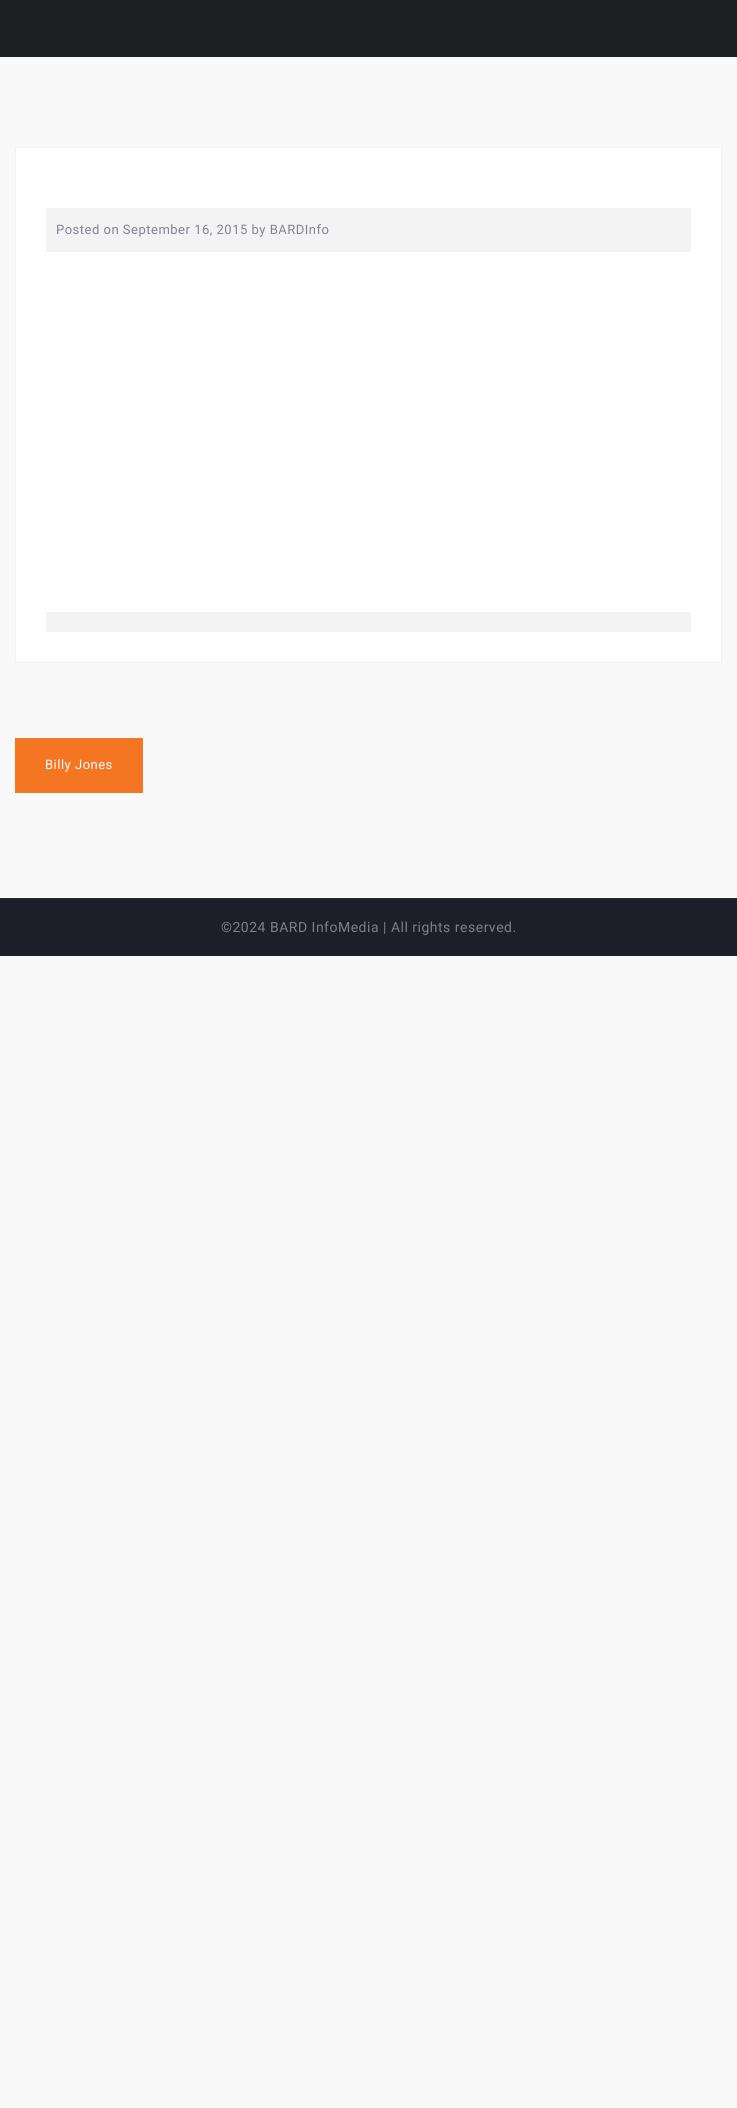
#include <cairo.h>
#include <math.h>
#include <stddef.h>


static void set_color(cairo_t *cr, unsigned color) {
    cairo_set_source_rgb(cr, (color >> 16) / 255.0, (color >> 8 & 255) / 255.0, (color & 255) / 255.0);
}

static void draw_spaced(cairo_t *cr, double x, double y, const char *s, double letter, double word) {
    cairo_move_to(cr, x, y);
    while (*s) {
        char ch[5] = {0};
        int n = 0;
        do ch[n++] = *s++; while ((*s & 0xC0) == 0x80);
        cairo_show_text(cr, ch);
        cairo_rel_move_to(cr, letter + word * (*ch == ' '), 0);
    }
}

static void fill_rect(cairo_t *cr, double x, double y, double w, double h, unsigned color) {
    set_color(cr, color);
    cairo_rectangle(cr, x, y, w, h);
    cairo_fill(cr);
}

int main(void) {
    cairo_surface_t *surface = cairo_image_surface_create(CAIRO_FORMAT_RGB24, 737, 2108);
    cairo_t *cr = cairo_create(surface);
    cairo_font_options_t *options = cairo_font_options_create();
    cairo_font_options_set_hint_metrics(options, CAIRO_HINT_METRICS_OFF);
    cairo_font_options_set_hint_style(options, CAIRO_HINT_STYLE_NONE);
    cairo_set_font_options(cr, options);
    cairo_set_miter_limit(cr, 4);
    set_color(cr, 0xF9F9F9);
    cairo_paint(cr);
    fill_rect(cr, 0, 0, 737, 57, 0x1C1E21);
    set_color(cr, 0xFFFFFF);
    cairo_rectangle(cr, 15.5, 147.5, 706, 515);
    cairo_fill_preserve(cr);
    set_color(cr, 0xF3F3F3);
    cairo_set_line_width(cr, 1);
    cairo_stroke(cr);
    fill_rect(cr, 46, 208, 645, 44, 0xF3F3F3);
    cairo_select_font_face(cr, "Roboto", CAIRO_FONT_SLANT_NORMAL, CAIRO_FONT_WEIGHT_NORMAL);
    cairo_set_font_size(cr, 13);
    set_color(cr, 0x838592);
    draw_spaced(cr, 56, 234, "Posted on September 16, 2015 by BARDInfo", 0.5, 0);
    fill_rect(cr, 46, 612, 645, 20, 0xF3F3F3);
    fill_rect(cr, 15, 738, 128, 55, 0xF47623);
    set_color(cr, 0xFFFFFF);
    draw_spaced(cr, 45, 769, "Billy Jones", 0.5, 0);
    fill_rect(cr, 0, 899, 737, 57, 0x1C1E29);
    fill_rect(cr, 0, 898, 737, 1, 0x272934);
    cairo_set_font_size(cr, 14);
    set_color(cr, 0x808080);
    draw_spaced(cr, 221, 932, "©2024 BARD InfoMedia | All rights reserved.", 0.5, 0);
    cairo_surface_write_to_png(surface, "output.png");
    cairo_font_options_destroy(options);
    cairo_destroy(cr);
    cairo_surface_destroy(surface);
    return 0;
}
